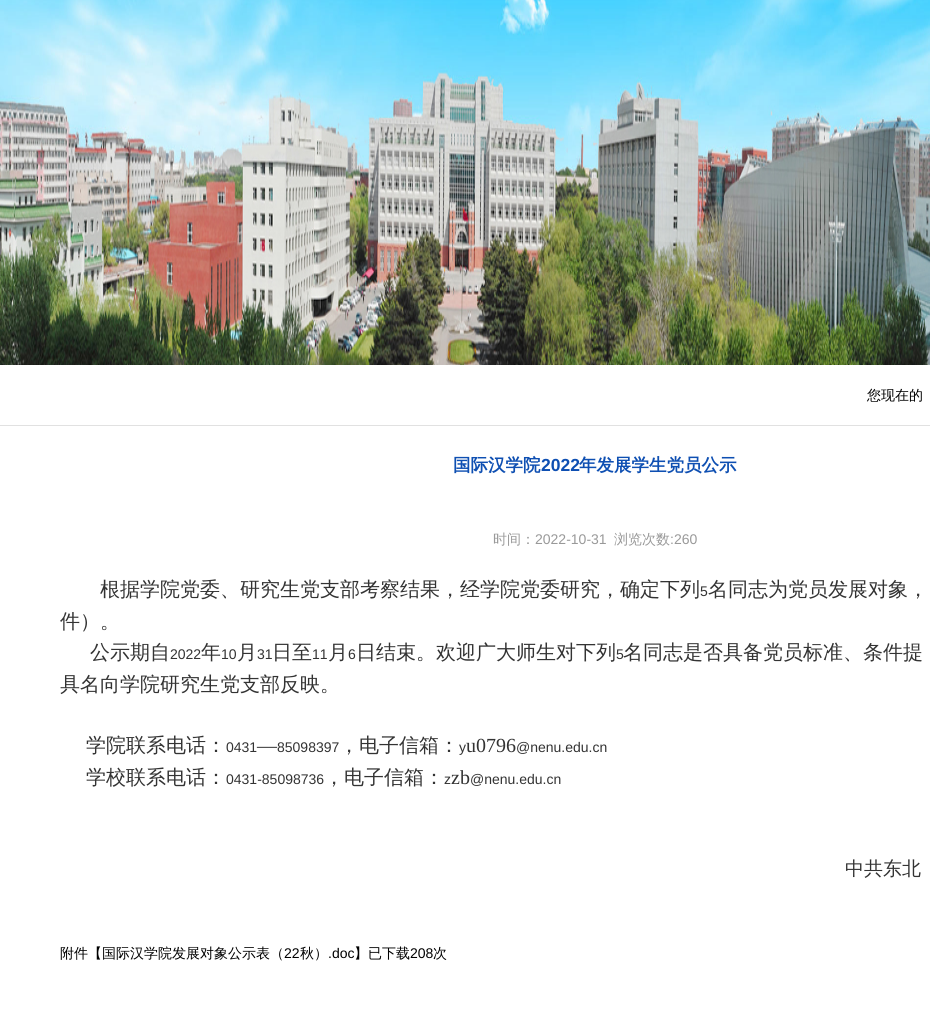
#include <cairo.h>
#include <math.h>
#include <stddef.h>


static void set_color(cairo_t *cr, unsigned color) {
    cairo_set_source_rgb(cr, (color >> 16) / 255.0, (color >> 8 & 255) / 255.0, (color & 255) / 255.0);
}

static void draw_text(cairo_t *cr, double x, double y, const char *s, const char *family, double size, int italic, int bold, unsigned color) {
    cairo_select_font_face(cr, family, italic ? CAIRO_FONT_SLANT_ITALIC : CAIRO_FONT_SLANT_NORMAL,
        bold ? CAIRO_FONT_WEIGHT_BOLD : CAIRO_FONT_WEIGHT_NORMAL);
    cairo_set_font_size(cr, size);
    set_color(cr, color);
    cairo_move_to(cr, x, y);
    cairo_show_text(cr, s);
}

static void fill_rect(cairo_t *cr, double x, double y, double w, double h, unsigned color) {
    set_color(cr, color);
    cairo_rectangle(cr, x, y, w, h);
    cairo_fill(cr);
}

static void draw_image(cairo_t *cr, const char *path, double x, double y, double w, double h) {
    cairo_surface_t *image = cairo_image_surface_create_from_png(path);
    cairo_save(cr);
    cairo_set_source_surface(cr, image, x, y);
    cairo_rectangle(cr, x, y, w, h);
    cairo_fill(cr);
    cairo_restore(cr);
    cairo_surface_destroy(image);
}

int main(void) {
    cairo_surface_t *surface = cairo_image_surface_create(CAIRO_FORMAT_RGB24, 930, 1029);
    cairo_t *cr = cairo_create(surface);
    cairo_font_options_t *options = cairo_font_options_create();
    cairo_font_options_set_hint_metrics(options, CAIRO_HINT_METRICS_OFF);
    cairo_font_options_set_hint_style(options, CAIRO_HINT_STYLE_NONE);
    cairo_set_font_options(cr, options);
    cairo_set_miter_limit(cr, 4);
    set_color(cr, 0xFFFFFF);
    cairo_paint(cr);
    draw_image(cr, "assets/img1.png", 0, 0, 930, 365);
    draw_text(cr, 867, 400, "您现在的", "WenQuanYi Zen Hei Medium", 14, 0, 0, 0x000000);
    fill_rect(cr, 0, 425, 930, 1, 0xE1E1E1);
    draw_text(cr, 453, 471, "国际汉学院", "WenQuanYi Zen Hei", 17.5, 0, 1, 0x0E4FB2);
    draw_text(cr, 541, 471, "2022", "Liberation Sans", 17.5, 0, 1, 0x0E4FB2);
    draw_text(cr, 579, 471, "年发展学生党员公示", "WenQuanYi Zen Hei", 17.5, 0, 1, 0x0E4FB2);
    draw_text(cr, 493, 544, "时间：", "WenQuanYi Zen Hei Medium", 14, 0, 0, 0x999999);
    draw_text(cr, 535, 544, "2022-10-31", "Liberation Sans", 14, 0, 0, 0x999999);
    draw_text(cr, 614, 544, "浏览次数", "WenQuanYi Zen Hei Medium", 14, 0, 0, 0x999999);
    draw_text(cr, 670, 544, ":260", "Liberation Sans", 14, 0, 0, 0x999999);
    draw_text(cr, 100, 596, "根据学院党委、研究生党支部考察结果，经学院党委研究，确定下列", "WenQuanYi Zen Hei Medium", 20, 0, 0, 0x333333);
    draw_text(cr, 700, 596, "5", "Liberation Sans", 14, 0, 0, 0x333333);
    draw_text(cr, 708, 596, "名同志为党员发展对象，", "WenQuanYi Zen Hei Medium", 20, 0, 0, 0x333333);
    draw_text(cr, 60, 628, "件）。", "WenQuanYi Zen Hei Medium", 20, 0, 0, 0x333333);
    draw_text(cr, 90, 659, "公示期自", "WenQuanYi Zen Hei Medium", 20, 0, 0, 0x333333);
    draw_text(cr, 170, 659, "2022", "Liberation Sans", 14, 0, 0, 0x333333);
    draw_text(cr, 201, 659, "年", "WenQuanYi Zen Hei Medium", 20, 0, 0, 0x333333);
    draw_text(cr, 221, 659, "10", "Liberation Sans", 14, 0, 0, 0x333333);
    draw_text(cr, 237, 659, "月", "WenQuanYi Zen Hei Medium", 20, 0, 0, 0x333333);
    draw_text(cr, 257, 659, "31", "Liberation Sans", 14, 0, 0, 0x333333);
    draw_text(cr, 272, 659, "日至", "WenQuanYi Zen Hei Medium", 20, 0, 0, 0x333333);
    draw_text(cr, 312, 659, "11", "Liberation Sans", 14, 0, 0, 0x333333);
    draw_text(cr, 328, 659, "月", "WenQuanYi Zen Hei Medium", 20, 0, 0, 0x333333);
    draw_text(cr, 348, 659, "6", "Liberation Sans", 14, 0, 0, 0x333333);
    draw_text(cr, 356, 659, "日结束。欢迎广大师生对下列", "WenQuanYi Zen Hei Medium", 20, 0, 0, 0x333333);
    draw_text(cr, 616, 659, "5", "Liberation Sans", 14, 0, 0, 0x333333);
    draw_text(cr, 623, 659, "名同志是否具备党员标准、条件提", "WenQuanYi Zen Hei Medium", 20, 0, 0, 0x333333);
    draw_text(cr, 60, 691, "具名向学院研究生党支部反映。", "WenQuanYi Zen Hei Medium", 20, 0, 0, 0x333333);
    draw_text(cr, 86, 752, "学院联系电话：", "WenQuanYi Zen Hei Medium", 20, 0, 0, 0x333333);
    draw_text(cr, 226, 752, "0431", "Liberation Sans", 14, 0, 0, 0x333333);
    draw_text(cr, 257, 752, "—", "Liberation Serif", 20, 0, 0, 0x333333);
    draw_text(cr, 277, 752, "85098397", "Liberation Sans", 14, 0, 0, 0x333333);
    draw_text(cr, 339, 752, "，电子信箱：", "WenQuanYi Zen Hei Medium", 20, 0, 0, 0x333333);
    draw_text(cr, 459, 752, "y", "Liberation Sans", 14, 0, 0, 0x333333);
    fill_rect(cr, 466, 744, 1, 2, 0xFFFFFF);
    draw_text(cr, 466, 752, "u0796", "Liberation Serif", 20, 0, 0, 0x333333);
    draw_text(cr, 516, 752, "@nenu.edu.cn", "Liberation Sans", 14, 0, 0, 0x333333);
    draw_text(cr, 86, 784, "学校联系电话：", "WenQuanYi Zen Hei Medium", 20, 0, 0, 0x333333);
    draw_text(cr, 226, 784, "0431-85098736", "Liberation Sans", 14, 0, 0, 0x333333);
    draw_text(cr, 324, 784, "，电子信箱：", "WenQuanYi Zen Hei Medium", 20, 0, 0, 0x333333);
    draw_text(cr, 444, 784, "z", "Liberation Sans", 14, 0, 0, 0x333333);
    draw_text(cr, 451, 784, "zb", "Liberation Serif", 20, 0, 0, 0x333333);
    draw_text(cr, 470, 784, "@nenu.edu.cn", "Liberation Sans", 14, 0, 0, 0x333333);
    draw_text(cr, 845, 875, "中共东北", "WenQuanYi Zen Hei Medium", 19, 0, 0, 0x333333);
    draw_text(cr, 60, 958, "附件【国际汉学院发展对象公示表（", "WenQuanYi Zen Hei Medium", 14, 0, 0, 0x000000);
    draw_text(cr, 284, 958, "22", "Liberation Sans", 14, 0, 0, 0x000000);
    draw_text(cr, 300, 958, "秋）", "WenQuanYi Zen Hei Medium", 14, 0, 0, 0x000000);
    draw_text(cr, 328, 958, ".doc", "Liberation Sans", 14, 0, 0, 0x000000);
    draw_text(cr, 354, 958, "】已下载", "WenQuanYi Zen Hei Medium", 14, 0, 0, 0x000000);
    draw_text(cr, 410, 958, "208", "Liberation Sans", 14, 0, 0, 0x000000);
    draw_text(cr, 433, 958, "次", "WenQuanYi Zen Hei Medium", 14, 0, 0, 0x000000);
    cairo_surface_write_to_png(surface, "output.png");
    cairo_font_options_destroy(options);
    cairo_destroy(cr);
    cairo_surface_destroy(surface);
    return 0;
}
